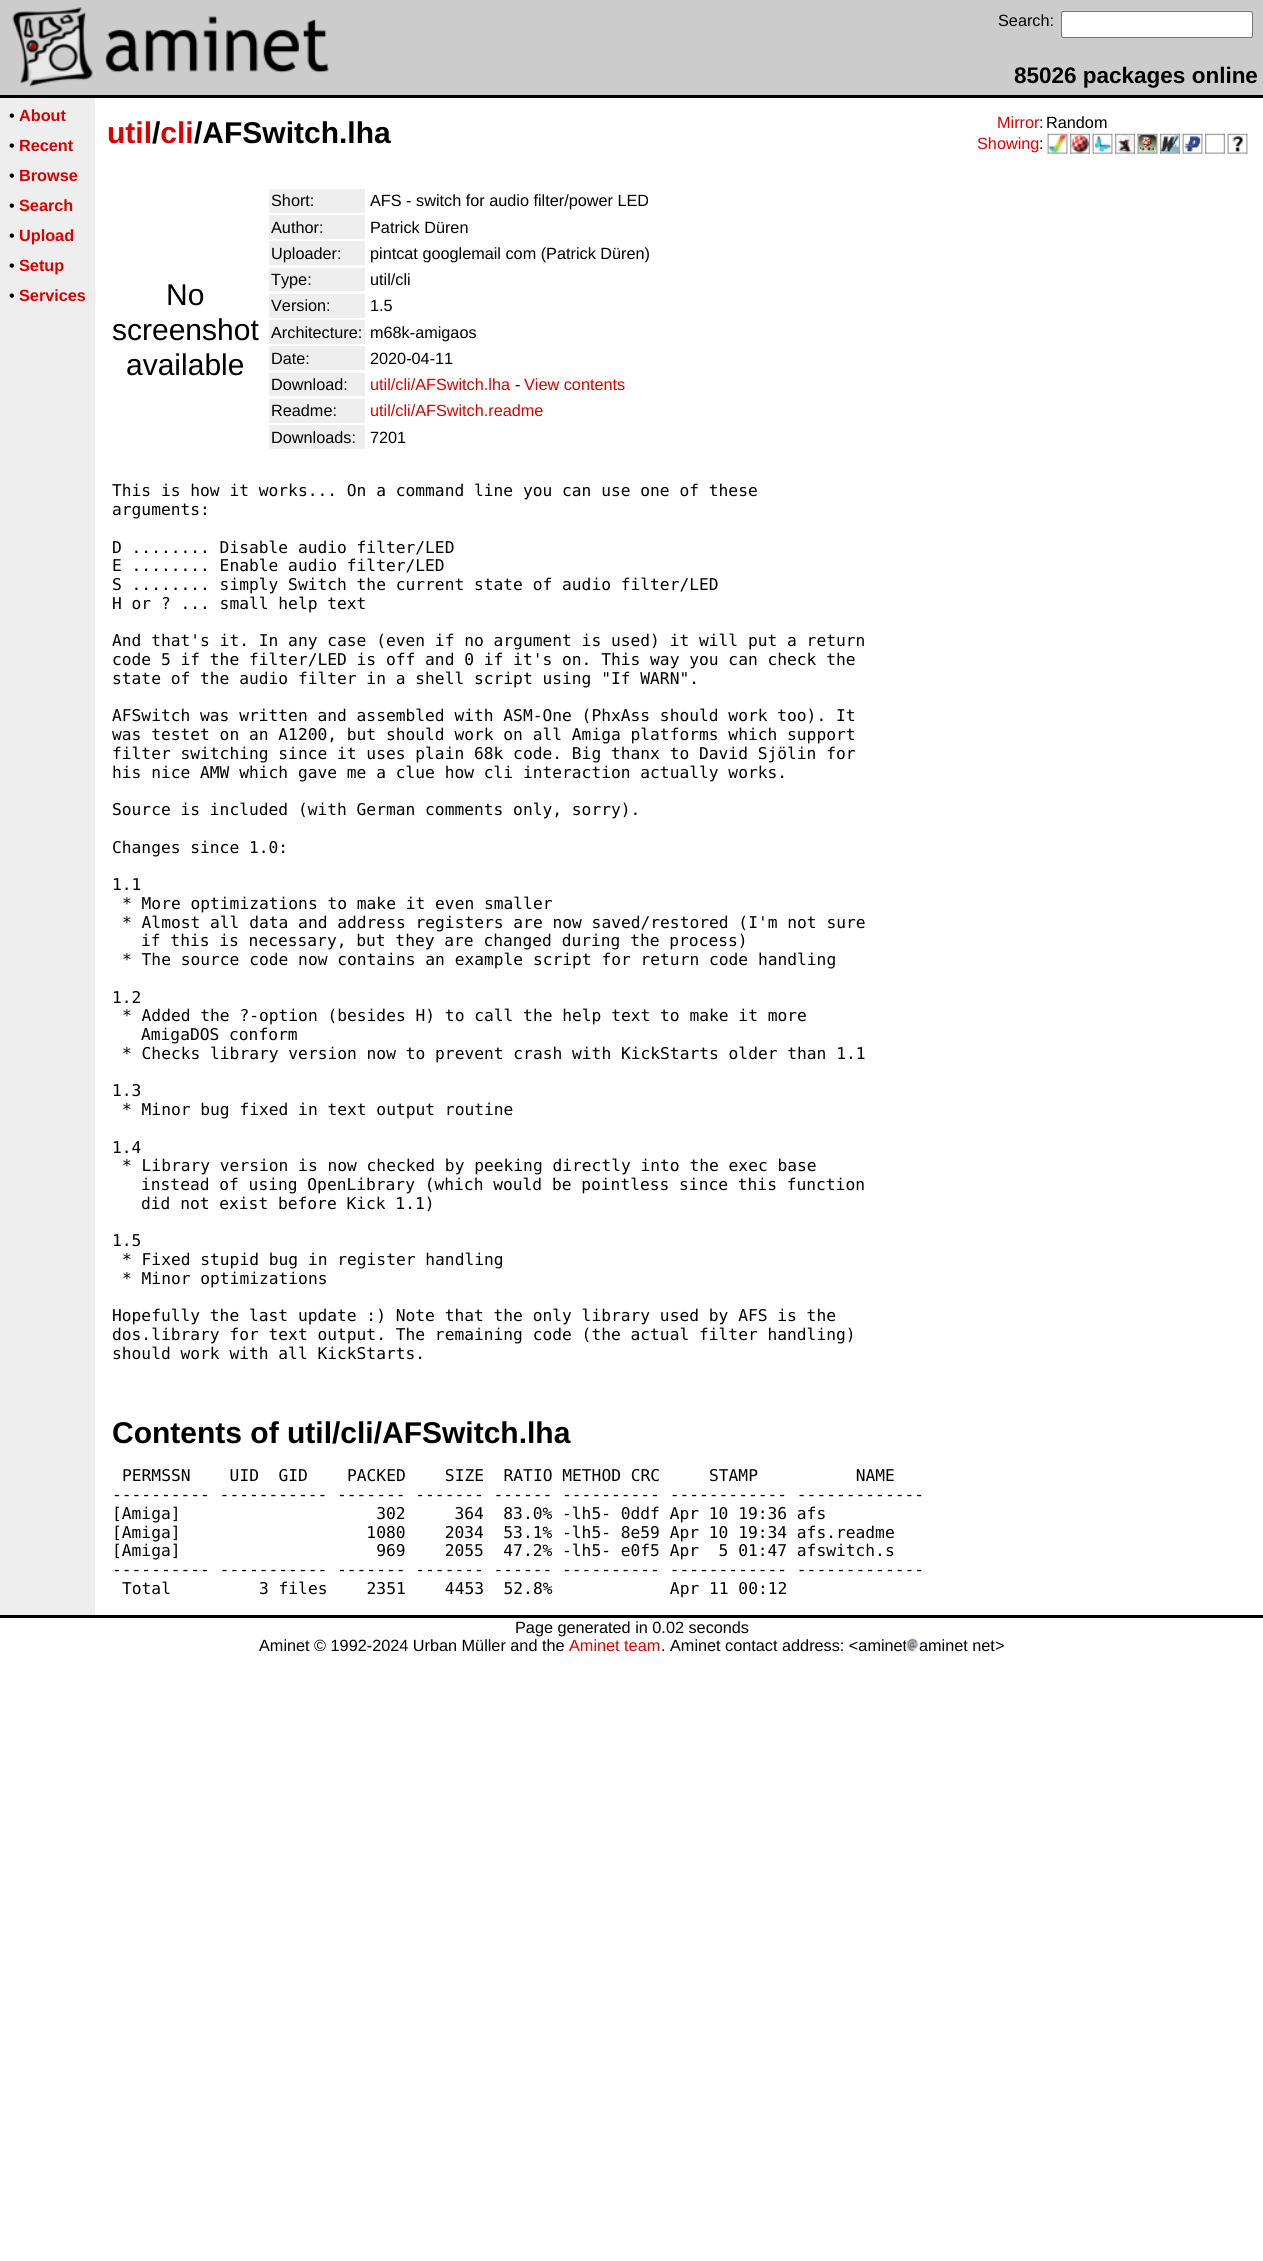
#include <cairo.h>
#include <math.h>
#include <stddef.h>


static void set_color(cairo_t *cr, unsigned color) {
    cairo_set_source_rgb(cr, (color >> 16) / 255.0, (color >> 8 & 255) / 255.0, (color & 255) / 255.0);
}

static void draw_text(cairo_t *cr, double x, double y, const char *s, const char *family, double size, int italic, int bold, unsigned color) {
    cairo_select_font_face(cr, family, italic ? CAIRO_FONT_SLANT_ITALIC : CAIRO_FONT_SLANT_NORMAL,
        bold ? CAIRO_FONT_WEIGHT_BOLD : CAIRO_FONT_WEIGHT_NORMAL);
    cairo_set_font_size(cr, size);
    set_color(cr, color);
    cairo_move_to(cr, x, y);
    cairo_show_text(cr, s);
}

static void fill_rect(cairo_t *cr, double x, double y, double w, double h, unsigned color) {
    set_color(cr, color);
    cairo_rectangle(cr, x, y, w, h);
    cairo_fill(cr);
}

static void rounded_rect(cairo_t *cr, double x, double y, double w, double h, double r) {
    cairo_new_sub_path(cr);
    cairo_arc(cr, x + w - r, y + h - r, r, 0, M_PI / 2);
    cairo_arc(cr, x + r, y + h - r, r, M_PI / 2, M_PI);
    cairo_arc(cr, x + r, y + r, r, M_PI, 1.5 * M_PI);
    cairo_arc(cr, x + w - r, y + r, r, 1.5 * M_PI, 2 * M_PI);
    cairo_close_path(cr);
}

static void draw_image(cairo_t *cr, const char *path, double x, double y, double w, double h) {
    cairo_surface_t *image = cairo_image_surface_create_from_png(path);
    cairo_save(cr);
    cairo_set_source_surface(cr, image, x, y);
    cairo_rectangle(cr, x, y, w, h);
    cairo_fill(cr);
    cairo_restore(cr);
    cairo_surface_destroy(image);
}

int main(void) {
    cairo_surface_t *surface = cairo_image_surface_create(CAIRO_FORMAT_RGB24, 1263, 2261);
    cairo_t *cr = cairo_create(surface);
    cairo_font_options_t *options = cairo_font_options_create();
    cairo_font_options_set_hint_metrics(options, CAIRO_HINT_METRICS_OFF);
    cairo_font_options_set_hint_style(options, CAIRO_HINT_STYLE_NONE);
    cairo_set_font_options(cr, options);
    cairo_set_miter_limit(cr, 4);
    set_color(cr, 0xFFFFFF);
    cairo_paint(cr);
    fill_rect(cr, 0, 0, 1263, 95, 0xCCCCCC);
    draw_image(cr, "assets/img1.png", 12, 7, 81, 80);
    draw_image(cr, "assets/img2.png", 105, 16, 224, 57);
    draw_text(cr, 998, 26, "Search:", "Liberation Sans", 16.25, 0, 0, 0x000000);
    set_color(cr, 0xFFFFFF);
    rounded_rect(cr, 1061.5, 11.5, 191, 26, 2);
    cairo_fill_preserve(cr);
    set_color(cr, 0x767676);
    cairo_set_line_width(cr, 1);
    cairo_stroke(cr);
    draw_text(cr, 1014, 83, "85026 packages online", "Liberation Sans", 22.5, 0, 1, 0x000000);
    fill_rect(cr, 0, 95, 1263, 3, 0x000000);
    fill_rect(cr, 0, 98, 95, 1517, 0xEEEEEE);
    draw_text(cr, 9, 121, "•", "Liberation Sans", 16.25, 0, 0, 0x000000);
    draw_text(cr, 19, 121, "About", "Liberation Sans", 16.25, 0, 1, 0xDD0000);
    draw_text(cr, 9, 151, "•", "Liberation Sans", 16.25, 0, 0, 0x000000);
    draw_text(cr, 19, 151, "Recent", "Liberation Sans", 16.25, 0, 1, 0xDD0000);
    draw_text(cr, 9, 181, "•", "Liberation Sans", 16.25, 0, 0, 0x000000);
    draw_text(cr, 19, 181, "Browse", "Liberation Sans", 16.25, 0, 1, 0xDD0000);
    draw_text(cr, 9, 211, "•", "Liberation Sans", 16.25, 0, 0, 0x000000);
    draw_text(cr, 19, 211, "Search", "Liberation Sans", 16.25, 0, 1, 0xDD0000);
    draw_text(cr, 9, 241, "•", "Liberation Sans", 16.25, 0, 0, 0x000000);
    draw_text(cr, 19, 241, "Upload", "Liberation Sans", 16.25, 0, 1, 0xDD0000);
    draw_text(cr, 9, 271, "•", "Liberation Sans", 16.25, 0, 0, 0x000000);
    draw_text(cr, 19, 271, "Setup", "Liberation Sans", 16.25, 0, 1, 0xDD0000);
    draw_text(cr, 9, 301, "•", "Liberation Sans", 16.25, 0, 0, 0x000000);
    draw_text(cr, 19, 301, "Services", "Liberation Sans", 16.25, 0, 1, 0xDD0000);
    draw_text(cr, 107, 143, "util cli", "Liberation Sans", 30, 0, 1, 0xDD0000);
    draw_text(cr, 152, 143, "/", "Liberation Sans", 30, 0, 1, 0x000000);
    draw_text(cr, 194, 143, "/AFSwitch.lha", "Liberation Sans", 30, 0, 1, 0x000000);
    draw_text(cr, 997, 128, "Mirror", "Liberation Sans", 16.25, 0, 0, 0xDD0000);
    draw_text(cr, 1039, 128, ":", "Liberation Sans", 16.25, 0, 0, 0x000000);
    draw_text(cr, 1046, 128, "Random", "Liberation Sans", 16.25, 0, 0, 0x000000);
    draw_text(cr, 977, 149, "Showing", "Liberation Sans", 16.25, 0, 0, 0xDD0000);
    draw_text(cr, 1039, 149, ":", "Liberation Sans", 16.25, 0, 0, 0x000000);
    draw_image(cr, "assets/img3.png", 1047, 133, 21, 21);
    draw_image(cr, "assets/img4.png", 1070, 133, 20, 21);
    draw_image(cr, "assets/img5.png", 1092, 133, 21, 21);
    draw_image(cr, "assets/img6.png", 1115, 133, 20, 21);
    draw_image(cr, "assets/img7.png", 1137, 133, 21, 21);
    draw_image(cr, "assets/img8.png", 1160, 133, 20, 21);
    draw_image(cr, "assets/img9.png", 1182, 133, 21, 21);
    draw_image(cr, "assets/img10.png", 1205, 133, 20, 21);
    draw_image(cr, "assets/img11.png", 1227, 133, 21, 21);
    draw_text(cr, 166, 305, "No", "Liberation Sans", 30, 0, 0, 0x000000);
    draw_text(cr, 112, 340, "screenshot", "Liberation Sans", 30, 0, 0, 0x000000);
    draw_text(cr, 126, 375, "available", "Liberation Sans", 30, 0, 0, 0x000000);
    fill_rect(cr, 269, 189, 96, 24, 0xEEEEEE);
    draw_text(cr, 271, 206, "Short:", "Liberation Sans", 16.25, 0, 0, 0x000000);
    draw_text(cr, 370, 206, "AFS - switch for audio filter/power LED", "Liberation Sans", 16.25, 0, 0, 0x000000);
    fill_rect(cr, 269, 215, 96, 24, 0xEEEEEE);
    draw_text(cr, 271, 233, "Author:", "Liberation Sans", 16.25, 0, 0, 0x000000);
    draw_text(cr, 370, 233, "Patrick Düren", "Liberation Sans", 16.25, 0, 0, 0x000000);
    fill_rect(cr, 269, 241, 96, 24, 0xEEEEEE);
    draw_text(cr, 271, 259, "Uploader:", "Liberation Sans", 16.25, 0, 0, 0x000000);
    draw_text(cr, 370, 259, "pintcat googlemail com (Patrick Düren)", "Liberation Sans", 16.25, 0, 0, 0x000000);
    fill_rect(cr, 269, 268, 96, 23, 0xEEEEEE);
    draw_text(cr, 271, 285, "Type:", "Liberation Sans", 16.25, 0, 0, 0x000000);
    draw_text(cr, 370, 285, "util/cli", "Liberation Sans", 16.25, 0, 0, 0x000000);
    fill_rect(cr, 269, 294, 96, 24, 0xEEEEEE);
    draw_text(cr, 271, 311, "Version:", "Liberation Sans", 16.25, 0, 0, 0x000000);
    draw_text(cr, 370, 311, "1.5", "Liberation Sans", 16.25, 0, 0, 0x000000);
    fill_rect(cr, 269, 320, 96, 24, 0xEEEEEE);
    draw_text(cr, 271, 338, "Architecture:", "Liberation Sans", 16.25, 0, 0, 0x000000);
    draw_text(cr, 370, 338, "m68k-amigaos", "Liberation Sans", 16.25, 0, 0, 0x000000);
    fill_rect(cr, 269, 346, 96, 24, 0xEEEEEE);
    draw_text(cr, 271, 364, "Date:", "Liberation Sans", 16.25, 0, 0, 0x000000);
    draw_text(cr, 370, 364, "2020-04-11", "Liberation Sans", 16.25, 0, 0, 0x000000);
    fill_rect(cr, 269, 373, 96, 23, 0xEEEEEE);
    draw_text(cr, 271, 390, "Download:", "Liberation Sans", 16.25, 0, 0, 0x000000);
    draw_text(cr, 370, 390, "util/cli/AFSwitch.lha", "Liberation Sans", 16.25, 0, 0, 0xDD0000);
    draw_text(cr, 515, 390, "-", "Liberation Sans", 16.25, 0, 0, 0x000000);
    draw_text(cr, 524, 390, "View contents", "Liberation Sans", 16.25, 0, 0, 0xDD0000);
    fill_rect(cr, 269, 399, 96, 24, 0xEEEEEE);
    draw_text(cr, 271, 416, "Readme:", "Liberation Sans", 16.25, 0, 0, 0x000000);
    draw_text(cr, 370, 416, "util/cli/AFSwitch.readme", "Liberation Sans", 16.25, 0, 0, 0xDD0000);
    fill_rect(cr, 269, 425, 96, 24, 0xEEEEEE);
    draw_text(cr, 271, 443, "Downloads:", "Liberation Sans", 16.25, 0, 0, 0x000000);
    draw_text(cr, 370, 443, "7201", "Liberation Sans", 16.25, 0, 0, 0x000000);
    draw_text(cr, 112, 496, "This is how it works... On a command line you can use one of these", "DejaVu Sans Mono", 16.25, 0, 0, 0x000000);
    draw_text(cr, 112, 515, "arguments:", "DejaVu Sans Mono", 16.25, 0, 0, 0x000000);
    draw_text(cr, 112, 553, "D ........ Disable audio filter/LED", "DejaVu Sans Mono", 16.25, 0, 0, 0x000000);
    draw_text(cr, 112, 571, "E ........ Enable audio filter/LED", "DejaVu Sans Mono", 16.25, 0, 0, 0x000000);
    draw_text(cr, 112, 590, "S ........ simply Switch the current state of audio filter/LED", "DejaVu Sans Mono", 16.25, 0, 0, 0x000000);
    draw_text(cr, 112, 609, "H or ? ... small help text", "DejaVu Sans Mono", 16.25, 0, 0, 0x000000);
    draw_text(cr, 112, 646, "And that's it. In any case (even if no argument is used) it will put a return", "DejaVu Sans Mono", 16.25, 0, 0, 0x000000);
    draw_text(cr, 112, 665, "code 5 if the filter/LED is off and 0 if it's on. This way you can check the", "DejaVu Sans Mono", 16.25, 0, 0, 0x000000);
    draw_text(cr, 112, 684, "state of the audio filter in a shell script using \"If WARN\".", "DejaVu Sans Mono", 16.25, 0, 0, 0x000000);
    draw_text(cr, 112, 721, "AFSwitch was written and assembled with ASM-One (PhxAss should work too). It", "DejaVu Sans Mono", 16.25, 0, 0, 0x000000);
    draw_text(cr, 112, 740, "was testet on an A1200, but should work on all Amiga platforms which support", "DejaVu Sans Mono", 16.25, 0, 0, 0x000000);
    draw_text(cr, 112, 759, "filter switching since it uses plain 68k code. Big thanx to David Sjölin for", "DejaVu Sans Mono", 16.25, 0, 0, 0x000000);
    draw_text(cr, 112, 778, "his nice AMW which gave me a clue how cli interaction actually works.", "DejaVu Sans Mono", 16.25, 0, 0, 0x000000);
    draw_text(cr, 112, 815, "Source is included (with German comments only, sorry).", "DejaVu Sans Mono", 16.25, 0, 0, 0x000000);
    draw_text(cr, 112, 853, "Changes since 1.0:", "DejaVu Sans Mono", 16.25, 0, 0, 0x000000);
    draw_text(cr, 112, 890, "1.1", "DejaVu Sans Mono", 16.25, 0, 0, 0x000000);
    draw_text(cr, 122, 909, "* More optimizations to make it even smaller", "DejaVu Sans Mono", 16.25, 0, 0, 0x000000);
    draw_text(cr, 122, 928, "* Almost all data and address registers are now saved/restored (I'm not sure", "DejaVu Sans Mono", 16.25, 0, 0, 0x000000);
    draw_text(cr, 141, 946, "if this is necessary, but they are changed during the process)", "DejaVu Sans Mono", 16.25, 0, 0, 0x000000);
    draw_text(cr, 122, 965, "* The source code now contains an example script for return code handling", "DejaVu Sans Mono", 16.25, 0, 0, 0x000000);
    draw_text(cr, 112, 1003, "1.2", "DejaVu Sans Mono", 16.25, 0, 0, 0x000000);
    draw_text(cr, 122, 1021, "* Added the ?-option (besides H) to call the help text to make it more", "DejaVu Sans Mono", 16.25, 0, 0, 0x000000);
    draw_text(cr, 141, 1040, "AmigaDOS conform", "DejaVu Sans Mono", 16.25, 0, 0, 0x000000);
    draw_text(cr, 122, 1059, "* Checks library version now to prevent crash with KickStarts older than 1.1", "DejaVu Sans Mono", 16.25, 0, 0, 0x000000);
    draw_text(cr, 112, 1096, "1.3", "DejaVu Sans Mono", 16.25, 0, 0, 0x000000);
    draw_text(cr, 122, 1115, "* Minor bug fixed in text output routine", "DejaVu Sans Mono", 16.25, 0, 0, 0x000000);
    draw_text(cr, 112, 1153, "1.4", "DejaVu Sans Mono", 16.25, 0, 0, 0x000000);
    draw_text(cr, 122, 1171, "* Library version is now checked by peeking directly into the exec base", "DejaVu Sans Mono", 16.25, 0, 0, 0x000000);
    draw_text(cr, 141, 1190, "instead of using OpenLibrary (which would be pointless since this function", "DejaVu Sans Mono", 16.25, 0, 0, 0x000000);
    draw_text(cr, 141, 1209, "did not exist before Kick 1.1)", "DejaVu Sans Mono", 16.25, 0, 0, 0x000000);
    draw_text(cr, 112, 1246, "1.5", "DejaVu Sans Mono", 16.25, 0, 0, 0x000000);
    draw_text(cr, 122, 1265, "* Fixed stupid bug in register handling", "DejaVu Sans Mono", 16.25, 0, 0, 0x000000);
    draw_text(cr, 122, 1284, "* Minor optimizations", "DejaVu Sans Mono", 16.25, 0, 0, 0x000000);
    draw_text(cr, 112, 1321, "Hopefully the last update :) Note that the only library used by AFS is the", "DejaVu Sans Mono", 16.25, 0, 0, 0x000000);
    draw_text(cr, 112, 1340, "dos.library for text output. The remaining code (the actual filter handling)", "DejaVu Sans Mono", 16.25, 0, 0, 0x000000);
    draw_text(cr, 112, 1359, "should work with all KickStarts.", "DejaVu Sans Mono", 16.25, 0, 0, 0x000000);
    draw_text(cr, 112, 1443, "Contents of util/cli/AFSwitch.lha", "Liberation Sans", 30, 0, 1, 0x000000);
    draw_text(cr, 122, 1481, "PERMSSN    UID  GID    PACKED    SIZE  RATIO METHOD CRC     STAMP          NAME", "DejaVu Sans Mono", 16.25, 0, 0, 0x000000);
    draw_text(cr, 112, 1500, "---------- ----------- ------- ------- ------ ---------- ------------ -------------", "DejaVu Sans Mono", 16.25, 0, 0, 0x000000);
    draw_text(cr, 112, 1519, "[Amiga]                    302     364  83.0% -lh5- 0ddf Apr 10 19:36 afs", "DejaVu Sans Mono", 16.25, 0, 0, 0x000000);
    draw_text(cr, 112, 1538, "[Amiga]                   1080    2034  53.1% -lh5- 8e59 Apr 10 19:34 afs.readme", "DejaVu Sans Mono", 16.25, 0, 0, 0x000000);
    draw_text(cr, 112, 1556, "[Amiga]                    969    2055  47.2% -lh5- e0f5 Apr  5 01:47 afswitch.s", "DejaVu Sans Mono", 16.25, 0, 0, 0x000000);
    draw_text(cr, 112, 1575, "---------- ----------- ------- ------- ------ ---------- ------------ -------------", "DejaVu Sans Mono", 16.25, 0, 0, 0x000000);
    draw_text(cr, 122, 1594, "Total         3 files    2351    4453  52.8%            Apr 11 00:12", "DejaVu Sans Mono", 16.25, 0, 0, 0x000000);
    fill_rect(cr, 0, 1615, 1263, 3, 0x000000);
    draw_text(cr, 515, 1633, "Page generated in 0.02 seconds", "Liberation Sans", 16.25, 0, 0, 0x000000);
    draw_text(cr, 259, 1651, "Aminet © 1992-2024 Urban Müller and the", "Liberation Sans", 16.25, 0, 0, 0x000000);
    draw_text(cr, 569, 1651, "Aminet team", "Liberation Sans", 16.25, 0, 0, 0xDD0000);
    draw_text(cr, 661, 1651, ". Aminet contact address: <aminet", "Liberation Sans", 16.25, 0, 0, 0x000000);
    draw_image(cr, "assets/img12.png", 906, 1638, 13, 14);
    draw_text(cr, 919, 1651, "aminet net>", "Liberation Sans", 16.25, 0, 0, 0x000000);
    cairo_surface_write_to_png(surface, "output.png");
    cairo_font_options_destroy(options);
    cairo_destroy(cr);
    cairo_surface_destroy(surface);
    return 0;
}
